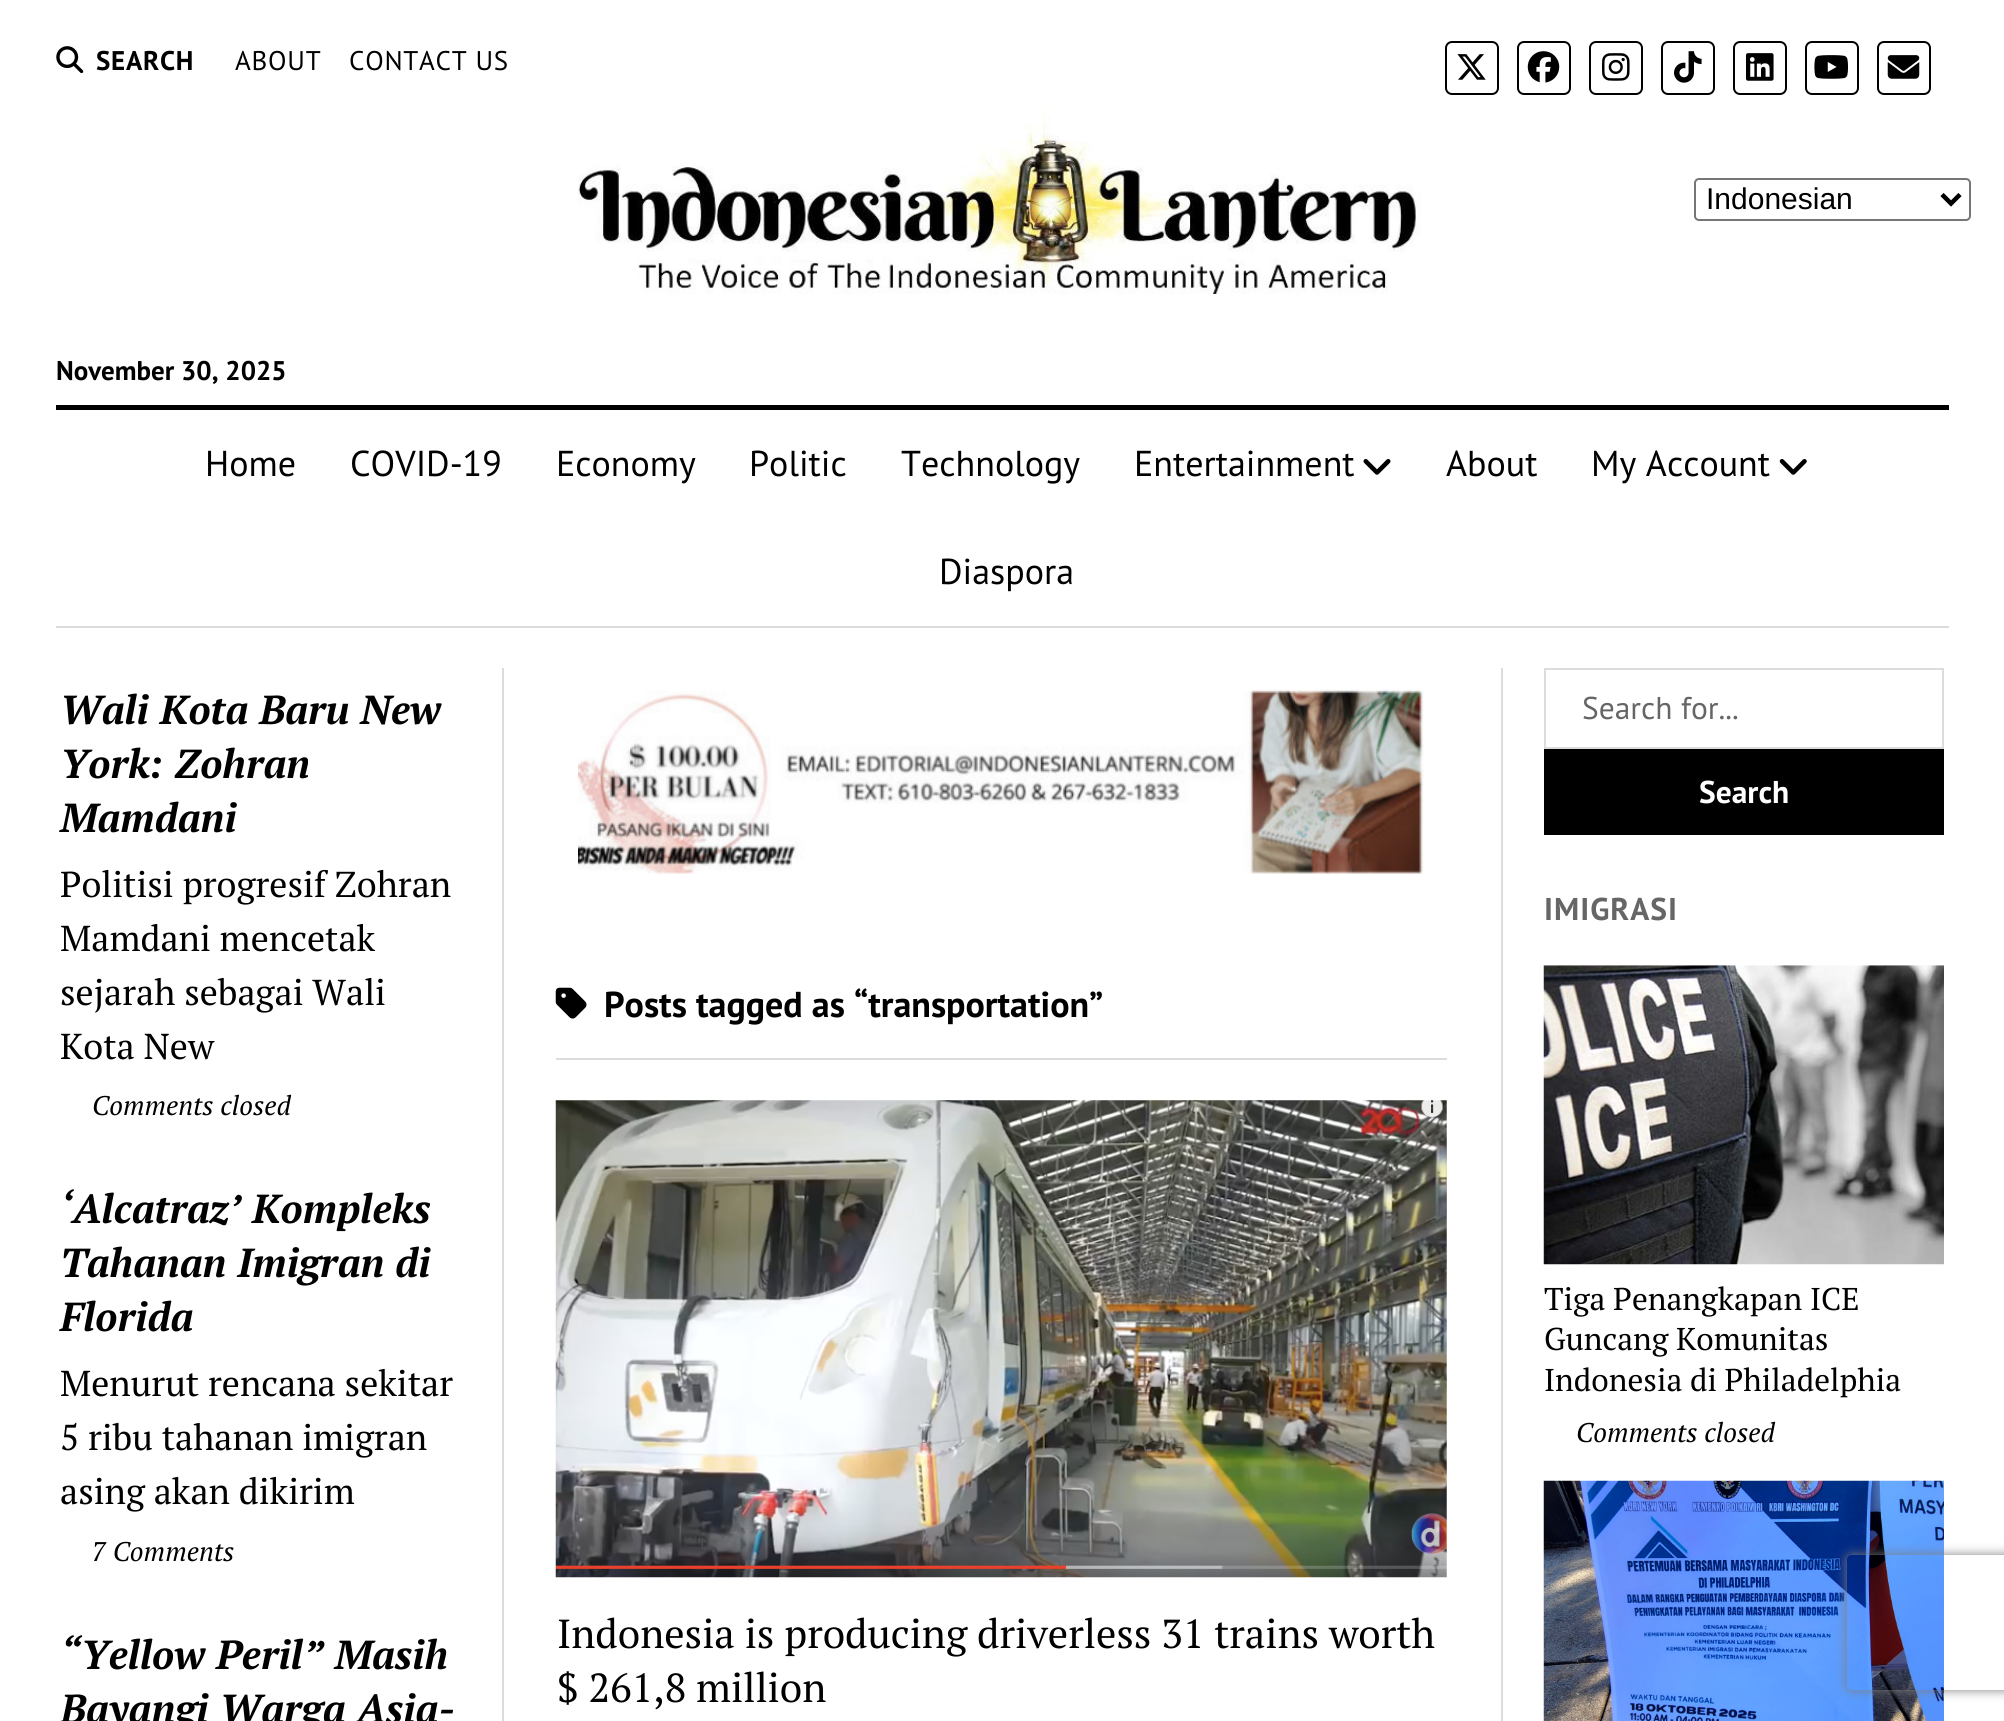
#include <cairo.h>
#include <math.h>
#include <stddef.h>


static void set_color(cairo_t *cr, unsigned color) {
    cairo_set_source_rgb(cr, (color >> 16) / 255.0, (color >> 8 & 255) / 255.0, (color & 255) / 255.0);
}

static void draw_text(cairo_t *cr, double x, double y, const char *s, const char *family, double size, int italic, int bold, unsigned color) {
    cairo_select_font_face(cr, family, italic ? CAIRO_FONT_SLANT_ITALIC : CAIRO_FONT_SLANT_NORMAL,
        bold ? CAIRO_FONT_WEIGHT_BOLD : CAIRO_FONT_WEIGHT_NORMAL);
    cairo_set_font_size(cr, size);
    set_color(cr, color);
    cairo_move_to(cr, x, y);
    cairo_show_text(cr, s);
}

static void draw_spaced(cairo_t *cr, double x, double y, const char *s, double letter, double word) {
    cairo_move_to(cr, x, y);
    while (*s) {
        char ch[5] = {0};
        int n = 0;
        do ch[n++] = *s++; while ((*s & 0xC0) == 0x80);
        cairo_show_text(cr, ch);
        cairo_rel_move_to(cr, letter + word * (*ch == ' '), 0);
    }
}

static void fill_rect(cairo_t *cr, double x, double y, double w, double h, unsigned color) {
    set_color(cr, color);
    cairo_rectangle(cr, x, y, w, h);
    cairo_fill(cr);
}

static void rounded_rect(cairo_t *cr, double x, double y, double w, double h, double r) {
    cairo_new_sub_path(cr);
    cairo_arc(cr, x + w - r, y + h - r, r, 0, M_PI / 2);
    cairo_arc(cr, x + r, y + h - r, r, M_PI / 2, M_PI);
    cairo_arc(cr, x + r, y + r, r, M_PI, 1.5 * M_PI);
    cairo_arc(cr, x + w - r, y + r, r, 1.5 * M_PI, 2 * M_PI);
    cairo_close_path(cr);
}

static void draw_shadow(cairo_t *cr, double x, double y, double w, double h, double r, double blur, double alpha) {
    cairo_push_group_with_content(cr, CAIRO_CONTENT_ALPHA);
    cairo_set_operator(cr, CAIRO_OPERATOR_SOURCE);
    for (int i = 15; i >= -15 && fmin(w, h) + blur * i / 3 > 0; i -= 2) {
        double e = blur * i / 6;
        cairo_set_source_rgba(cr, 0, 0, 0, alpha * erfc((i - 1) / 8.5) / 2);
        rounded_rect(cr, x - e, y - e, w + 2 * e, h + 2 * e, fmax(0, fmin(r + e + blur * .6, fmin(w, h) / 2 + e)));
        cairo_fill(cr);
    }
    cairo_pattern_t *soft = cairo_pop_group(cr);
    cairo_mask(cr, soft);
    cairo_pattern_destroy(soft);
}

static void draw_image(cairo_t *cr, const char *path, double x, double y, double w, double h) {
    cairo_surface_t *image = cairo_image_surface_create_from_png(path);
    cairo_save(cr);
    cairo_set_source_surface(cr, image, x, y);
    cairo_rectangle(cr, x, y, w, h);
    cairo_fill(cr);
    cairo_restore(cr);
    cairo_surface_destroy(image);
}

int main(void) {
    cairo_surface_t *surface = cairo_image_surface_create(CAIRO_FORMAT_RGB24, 2004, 1721);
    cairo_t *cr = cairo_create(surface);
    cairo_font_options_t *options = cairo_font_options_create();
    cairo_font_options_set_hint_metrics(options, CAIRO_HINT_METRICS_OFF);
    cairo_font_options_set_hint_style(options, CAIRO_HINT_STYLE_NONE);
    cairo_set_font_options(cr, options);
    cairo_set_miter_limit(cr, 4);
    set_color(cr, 0xFFFFFF);
    cairo_paint(cr);
    draw_image(cr, "assets/img1.png", 56, 46, 28, 28);
    cairo_select_font_face(cr, "PT Sans", CAIRO_FONT_SLANT_NORMAL, CAIRO_FONT_WEIGHT_BOLD);
    cairo_set_font_size(cr, 27);
    set_color(cr, 0x000000);
    draw_spaced(cr, 96, 70, "SEARCH", 0.75, 0);
    cairo_select_font_face(cr, "PT Sans", CAIRO_FONT_SLANT_NORMAL, CAIRO_FONT_WEIGHT_NORMAL);
    draw_spaced(cr, 235, 70, "ABOUT", 0.75, 0);
    draw_spaced(cr, 349, 70, "CONTACT US", 0.75, 0);
    rounded_rect(cr, 1446, 42, 52, 52, 6);
    cairo_stroke(cr);
    draw_image(cr, "assets/img2.png", 1457, 54, 29, 26);
    rounded_rect(cr, 1518, 42, 52, 52, 6);
    cairo_stroke(cr);
    draw_image(cr, "assets/img3.png", 1527, 51, 33, 32);
    rounded_rect(cr, 1590, 42, 52, 52, 6);
    cairo_stroke(cr);
    draw_image(cr, "assets/img4.png", 1602, 53, 28, 28);
    rounded_rect(cr, 1662, 42, 52, 52, 6);
    cairo_stroke(cr);
    draw_image(cr, "assets/img5.png", 1674, 51, 28, 32);
    rounded_rect(cr, 1734, 42, 52, 52, 6);
    cairo_stroke(cr);
    draw_image(cr, "assets/img6.png", 1746, 53, 28, 28);
    rounded_rect(cr, 1806, 42, 52, 52, 6);
    cairo_stroke(cr);
    draw_image(cr, "assets/img7.png", 1814, 55, 34, 24);
    rounded_rect(cr, 1878, 42, 52, 52, 6);
    cairo_stroke(cr);
    draw_image(cr, "assets/img8.png", 1887, 55, 33, 24);
    draw_image(cr, "assets/img9.png", 578, 108, 843, 186);
    draw_text(cr, 56, 380, "November 30, 2025", "PT Sans", 27, 0, 1, 0x000000);
    fill_rect(cr, 56, 405, 1893, 5, 0x000000);
    fill_rect(cr, 56, 626, 1893, 2, 0xDCDCDC);
    draw_text(cr, 205, 476, "Home", "PT Sans", 36, 0, 0, 0x000000);
    draw_text(cr, 350, 476, "COVID-19", "PT Sans", 36, 0, 0, 0x000000);
    draw_text(cr, 556, 476, "Economy", "PT Sans", 36, 0, 0, 0x000000);
    draw_text(cr, 749, 476, "Politic", "PT Sans", 36, 0, 0, 0x000000);
    draw_text(cr, 901, 476, "Technology", "PT Sans", 36, 0, 0, 0x000000);
    draw_text(cr, 1134, 476, "Entertainment", "PT Sans", 36, 0, 0, 0x000000);
    draw_image(cr, "assets/img10.png", 1363, 459, 28, 16);
    draw_text(cr, 1446, 476, "About", "PT Sans", 36, 0, 0, 0x000000);
    draw_text(cr, 1591, 476, "My Account", "PT Sans", 36, 0, 0, 0x000000);
    draw_image(cr, "assets/img11.png", 1779, 459, 28, 16);
    draw_text(cr, 939, 584, "Diaspora", "PT Sans", 36, 0, 0, 0x000000);
    fill_rect(cr, 502, 668, 2, 1053, 0xDCDCDC);
    fill_rect(cr, 1501, 668, 2, 1053, 0xDCDCDC);
    draw_text(cr, 60, 724, "Wali Kota Baru New", "PT Serif", 40.5, 1, 1, 0x000000);
    draw_text(cr, 60, 778, "York: Zohran", "PT Serif", 40.5, 1, 1, 0x000000);
    draw_text(cr, 60, 832, "Mamdani", "PT Serif", 40.5, 1, 1, 0x000000);
    draw_text(cr, 60, 897, "Politisi progresif Zohran", "PT Serif", 36, 0, 0, 0x000000);
    draw_text(cr, 60, 951, "Mamdani mencetak", "PT Serif", 36, 0, 0, 0x000000);
    draw_text(cr, 60, 1005, "sejarah sebagai Wali", "PT Serif", 36, 0, 0, 0x000000);
    draw_text(cr, 60, 1059, "Kota New", "PT Serif", 36, 0, 0, 0x000000);
    draw_text(cr, 92, 1115, "Comments closed", "PT Serif", 27, 1, 0, 0x000000);
    draw_text(cr, 60, 1223, "‘Alcatraz’ Kompleks", "PT Serif", 40.5, 1, 1, 0x000000);
    draw_text(cr, 60, 1277, "Tahanan Imigran di", "PT Serif", 40.5, 1, 1, 0x000000);
    draw_text(cr, 60, 1331, "Florida", "PT Serif", 40.5, 1, 1, 0x000000);
    draw_text(cr, 60, 1396, "Menurut rencana sekitar", "PT Serif", 36, 0, 0, 0x000000);
    draw_text(cr, 60, 1450, "5 ribu tahanan imigran", "PT Serif", 36, 0, 0, 0x000000);
    draw_text(cr, 60, 1504, "asing akan dikirim", "PT Serif", 36, 0, 0, 0x000000);
    draw_text(cr, 92, 1561, "7 Comments", "PT Serif", 27, 1, 0, 0x000000);
    draw_text(cr, 60, 1669, "“Yellow Peril” Masih", "PT Serif", 40.5, 1, 1, 0x000000);
    draw_text(cr, 60, 1723, "Bayangi Warga Asia-", "PT Serif", 40.5, 1, 1, 0x000000);
    draw_image(cr, "assets/img12.png", 578, 689, 847, 185);
    fill_rect(cr, 556, 1058, 891, 2, 0xDCDCDC);
    draw_image(cr, "assets/img13.png", 555, 987, 32, 32);
    draw_text(cr, 604, 1017, "Posts tagged as “transportation”", "PT Sans", 36, 0, 1, 0x000000);
    draw_image(cr, "assets/img14.png", 555, 1100, 892, 478);
    draw_text(cr, 557, 1648, "Indonesia is producing driverless 31 trains worth", "PT Serif", 40.5, 0, 0, 0x000000);
    draw_text(cr, 557, 1702, "$ 261,8 million", "PT Serif", 40.5, 0, 0, 0x000000);
    cairo_rectangle(cr, 1545, 669, 398, 79);
    set_color(cr, 0xDCDCDC);
    cairo_stroke(cr);
    draw_text(cr, 1582, 719, "Search for...", "PT Sans", 31.5, 0, 0, 0x666666);
    fill_rect(cr, 1544, 749, 400, 86, 0x000000);
    draw_text(cr, 1699, 803, "Search", "PT Sans", 31.5, 0, 1, 0xFFFFFF);
    set_color(cr, 0x666666);
    draw_spaced(cr, 1544, 920, "IMIGRASI", 1, 0);
    draw_image(cr, "assets/img15.png", 1543, 965, 401, 300);
    draw_text(cr, 1544, 1310, "Tiga Penangkapan ICE", "PT Serif", 31.5, 0, 0, 0x000000);
    draw_text(cr, 1544, 1350, "Guncang Komunitas", "PT Serif", 31.5, 0, 0, 0x000000);
    draw_text(cr, 1544, 1391, "Indonesia di Philadelphia", "PT Serif", 31.5, 0, 0, 0x000000);
    draw_text(cr, 1576, 1442, "Comments closed", "PT Serif", 27, 1, 0, 0x000000);
    draw_image(cr, "assets/img16.png", 1543, 1480, 401, 241);
    rounded_rect(cr, 1695, 179, 275, 41, 4);
    set_color(cr, 0x767676);
    cairo_stroke(cr);
    cairo_new_path(cr);
    cairo_move_to(cr, 1942, 194.5);
    cairo_line_to(cr, 1951, 203.5);
    cairo_line_to(cr, 1960, 194.5);
    set_color(cr, 0x000000);
    cairo_set_line_width(cr, 4.5);
    cairo_stroke(cr);
    draw_text(cr, 1706, 209, "Indonesian", "Liberation Sans", 30, 0, 0, 0x000000);
    cairo_save(cr);
    cairo_set_fill_rule(cr, CAIRO_FILL_RULE_EVEN_ODD);
    cairo_new_path(cr);
    cairo_move_to(cr, 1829, 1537);
    cairo_line_to(cr, 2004, 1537);
    cairo_line_to(cr, 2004, 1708);
    cairo_line_to(cr, 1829, 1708);
    cairo_close_path(cr);
    cairo_move_to(cr, 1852, 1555);
    cairo_line_to(cr, 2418, 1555);
    cairo_curve_to(cr, 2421, 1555, 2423, 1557, 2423, 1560);
    cairo_line_to(cr, 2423, 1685);
    cairo_curve_to(cr, 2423, 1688, 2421, 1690, 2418, 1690);
    cairo_line_to(cr, 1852, 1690);
    cairo_curve_to(cr, 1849, 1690, 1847, 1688, 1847, 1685);
    cairo_line_to(cr, 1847, 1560);
    cairo_curve_to(cr, 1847, 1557, 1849, 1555, 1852, 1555);
    cairo_close_path(cr);
    cairo_clip(cr);
    set_color(cr, 0x808080);
    draw_shadow(cr, 1847, 1555, 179, 135, 5, 5.5, 1);
    cairo_restore(cr);
    cairo_surface_write_to_png(surface, "output.png");
    cairo_font_options_destroy(options);
    cairo_destroy(cr);
    cairo_surface_destroy(surface);
    return 0;
}
